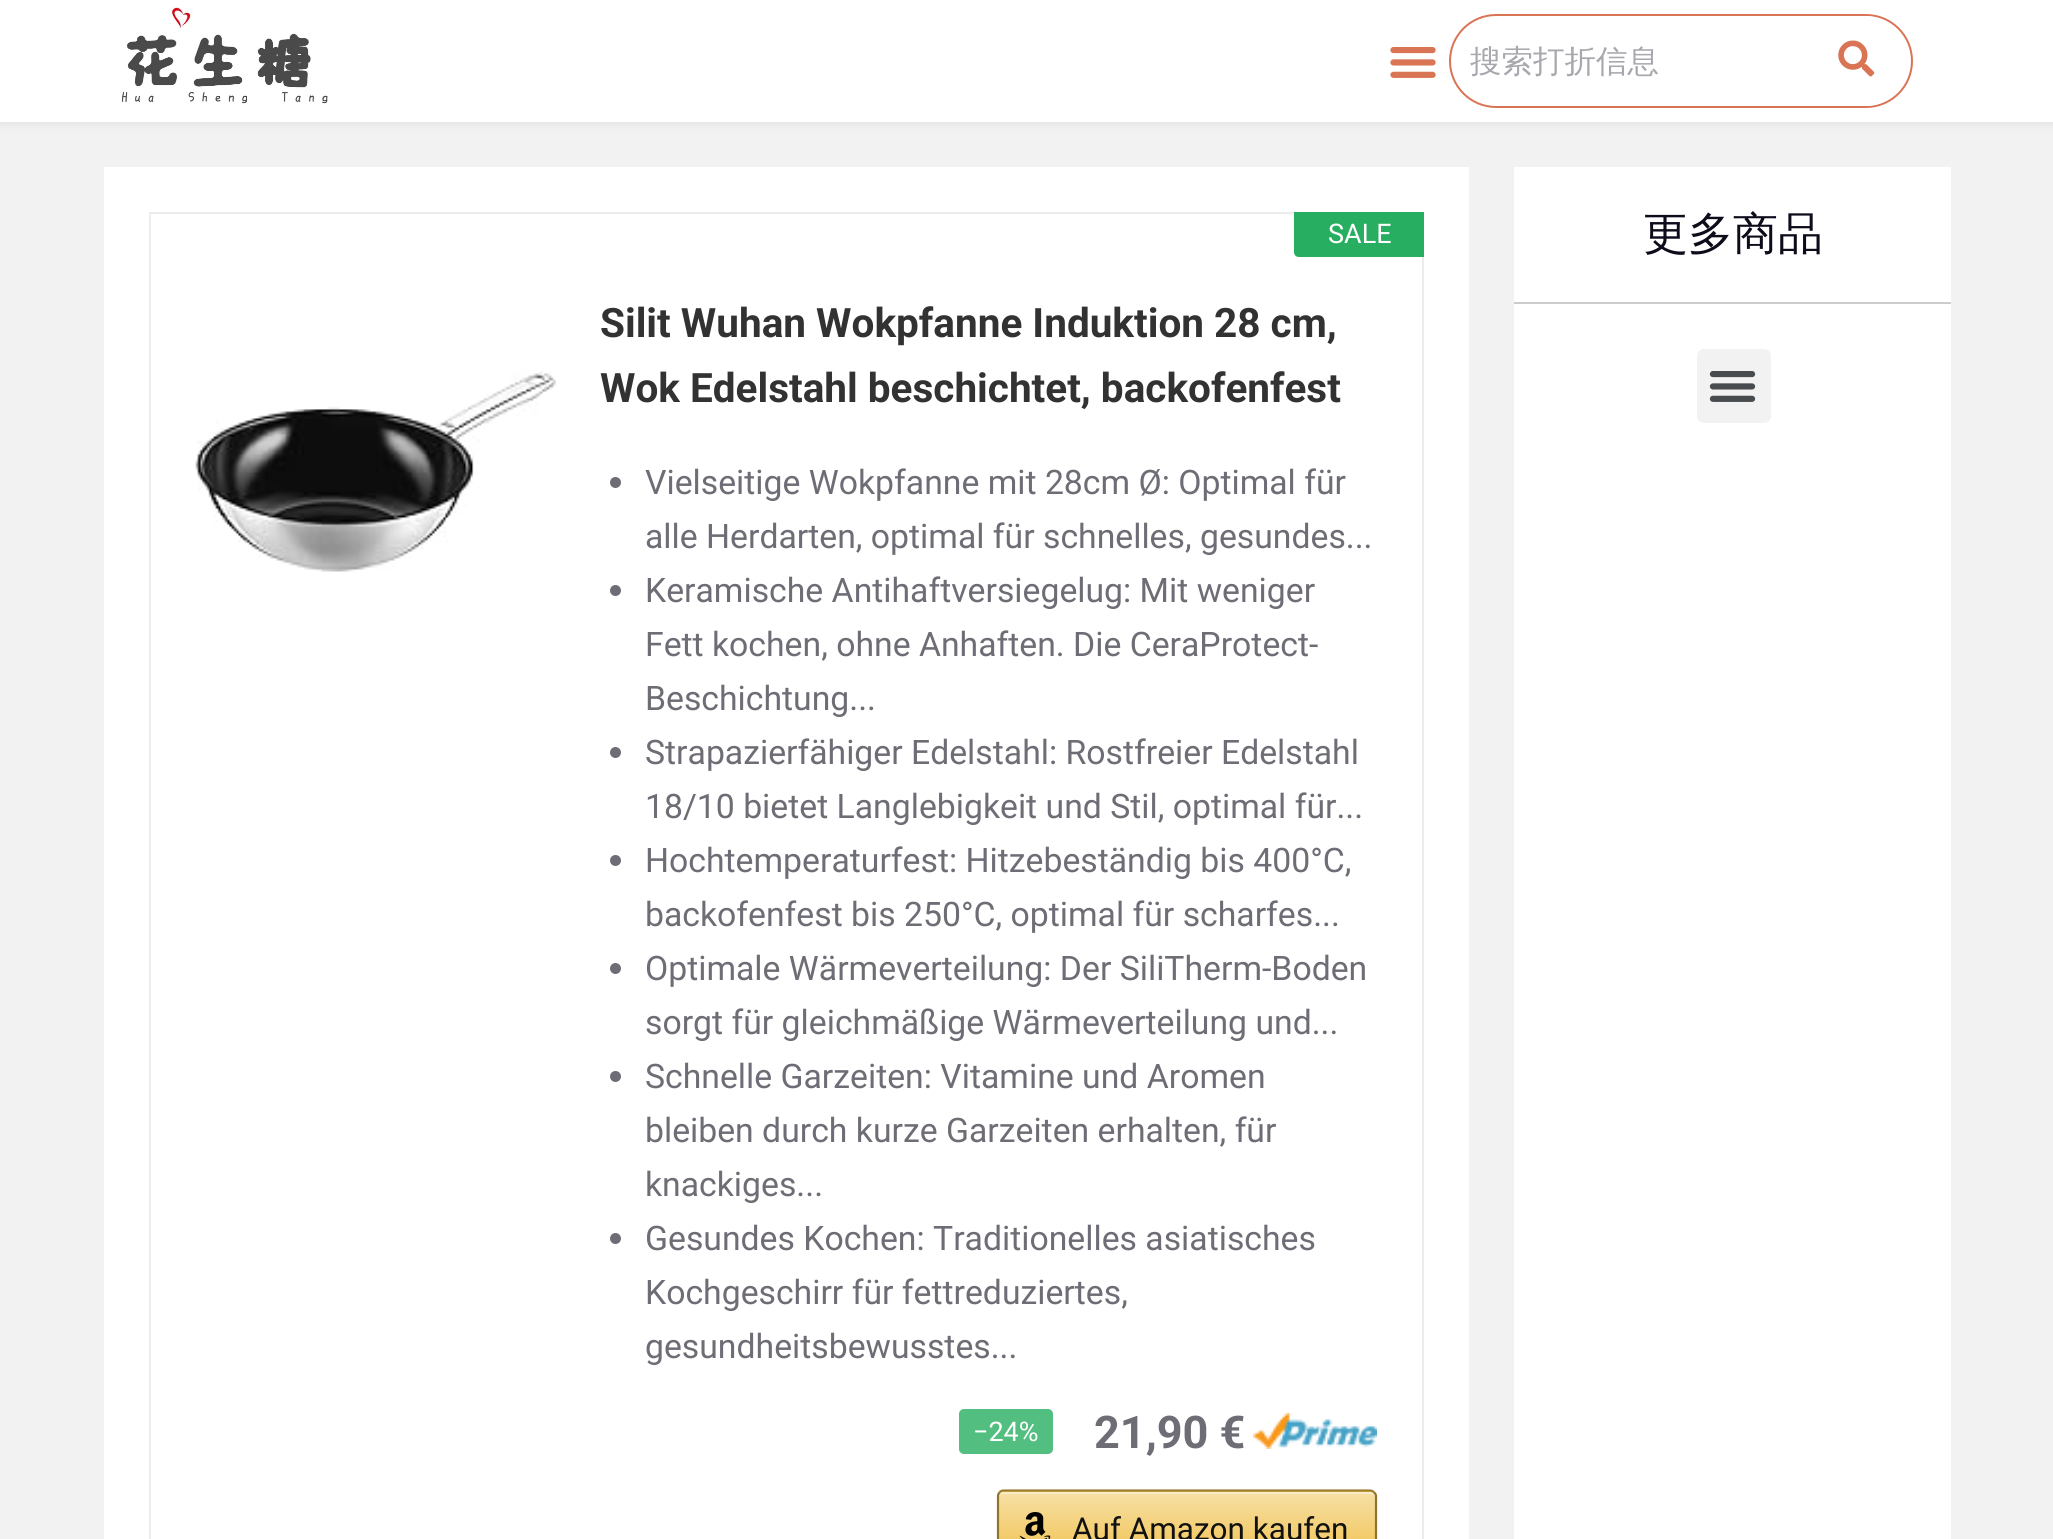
#include <cairo.h>
#include <math.h>
#include <stddef.h>


static void set_color(cairo_t *cr, unsigned color) {
    cairo_set_source_rgb(cr, (color >> 16) / 255.0, (color >> 8 & 255) / 255.0, (color & 255) / 255.0);
}

static void draw_text(cairo_t *cr, double x, double y, const char *s, const char *family, double size, int italic, int bold, unsigned color) {
    cairo_select_font_face(cr, family, italic ? CAIRO_FONT_SLANT_ITALIC : CAIRO_FONT_SLANT_NORMAL,
        bold ? CAIRO_FONT_WEIGHT_BOLD : CAIRO_FONT_WEIGHT_NORMAL);
    cairo_set_font_size(cr, size);
    set_color(cr, color);
    cairo_move_to(cr, x, y);
    cairo_show_text(cr, s);
}

static void fill_rect(cairo_t *cr, double x, double y, double w, double h, unsigned color) {
    set_color(cr, color);
    cairo_rectangle(cr, x, y, w, h);
    cairo_fill(cr);
}

static void rounded_rect(cairo_t *cr, double x, double y, double w, double h, double r) {
    cairo_new_sub_path(cr);
    cairo_arc(cr, x + w - r, y + h - r, r, 0, M_PI / 2);
    cairo_arc(cr, x + r, y + h - r, r, M_PI / 2, M_PI);
    cairo_arc(cr, x + r, y + r, r, M_PI, 1.5 * M_PI);
    cairo_arc(cr, x + w - r, y + r, r, 1.5 * M_PI, 2 * M_PI);
    cairo_close_path(cr);
}

static void draw_shadow(cairo_t *cr, double x, double y, double w, double h, double r, double blur, double alpha) {
    cairo_push_group_with_content(cr, CAIRO_CONTENT_ALPHA);
    cairo_set_operator(cr, CAIRO_OPERATOR_SOURCE);
    for (int i = 15; i >= -15 && fmin(w, h) + blur * i / 3 > 0; i -= 2) {
        double e = blur * i / 6;
        cairo_set_source_rgba(cr, 0, 0, 0, alpha * erfc((i - 1) / 8.5) / 2);
        rounded_rect(cr, x - e, y - e, w + 2 * e, h + 2 * e, fmax(0, fmin(r + e + blur * .6, fmin(w, h) / 2 + e)));
        cairo_fill(cr);
    }
    cairo_pattern_t *soft = cairo_pop_group(cr);
    cairo_mask(cr, soft);
    cairo_pattern_destroy(soft);
}

static void draw_image(cairo_t *cr, const char *path, double x, double y, double w, double h) {
    cairo_surface_t *image = cairo_image_surface_create_from_png(path);
    cairo_save(cr);
    cairo_set_source_surface(cr, image, x, y);
    cairo_rectangle(cr, x, y, w, h);
    cairo_fill(cr);
    cairo_restore(cr);
    cairo_surface_destroy(image);
}

int main(void) {
    cairo_surface_t *surface = cairo_image_surface_create(CAIRO_FORMAT_RGB24, 2053, 1539);
    cairo_t *cr = cairo_create(surface);
    cairo_font_options_t *options = cairo_font_options_create();
    cairo_font_options_set_hint_metrics(options, CAIRO_HINT_METRICS_OFF);
    cairo_font_options_set_hint_style(options, CAIRO_HINT_STYLE_NONE);
    cairo_set_font_options(cr, options);
    cairo_set_miter_limit(cr, 4);
    cairo_pattern_t *gradient;
    set_color(cr, 0xF2F2F2);
    cairo_paint(cr);
    set_color(cr, 0x000000);
    draw_shadow(cr, 0, 0, 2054, 122, 0, 5.5, 0.1);
    fill_rect(cr, 0, 0, 2053, 122, 0xFFFFFF);
    draw_image(cr, "assets/img1.png", 122, 7, 206, 97);
    draw_image(cr, "assets/img2.png", 1390, 47, 46, 31);
    rounded_rect(cr, 1450, 15, 462, 92, 46);
    set_color(cr, 0xD97455);
    cairo_stroke(cr);
    draw_text(cr, 1470, 72, "搜索打折信息", "WenQuanYi Zen Hei Medium", 31.5, 0, 0, 0xA8A7AD);
    set_color(cr, 0xFFFFFF);
    cairo_new_path(cr);
    cairo_move_to(cr, 1802, 16);
    cairo_line_to(cr, 1865, 16);
    cairo_curve_to(cr, 1890, 16, 1910, 36, 1910, 61);
    cairo_curve_to(cr, 1910, 86, 1890, 106, 1865, 106);
    cairo_line_to(cr, 1802, 106);
    cairo_close_path(cr);
    cairo_fill(cr);
    draw_image(cr, "assets/img3.png", 1838, 40, 37, 37);
    fill_rect(cr, 104, 167, 1365, 1372, 0xFFFFFF);
    cairo_rectangle(cr, 150, 213, 1273, 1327);
    set_color(cr, 0xECECEC);
    cairo_stroke(cr);
    set_color(cr, 0x27AE60);
    cairo_new_path(cr);
    cairo_move_to(cr, 1294, 212);
    cairo_line_to(cr, 1424, 212);
    cairo_line_to(cr, 1424, 257);
    cairo_line_to(cr, 1299, 257);
    cairo_curve_to(cr, 1296, 257, 1294, 255, 1294, 252);
    cairo_close_path(cr);
    cairo_fill(cr);
    draw_text(cr, 1328, 243, "SALE", "Roboto", 27, 0, 0, 0xFFFFFF);
    draw_image(cr, "assets/img4.png", 195, 371, 361, 201);
    draw_text(cr, 600, 337, "Silit Wuhan Wokpfanne Induktion 28 cm,", "Roboto", 40.5, 0, 1, 0x323232);
    draw_text(cr, 600, 402, "Wok Edelstahl beschichtet, backofenfest", "Roboto", 40.5, 0, 1, 0x323232);
    set_color(cr, 0x6E6D76);
    cairo_new_path(cr);
    cairo_arc(cr, 615.5, 482.5, 5.5, 0, 2 * M_PI);
    cairo_fill(cr);
    draw_text(cr, 645, 494, "Vielseitige Wokpfanne mit 28cm Ø: Optimal für", "Roboto", 33.75, 0, 0, 0x6E6D76);
    draw_text(cr, 645, 548, "alle Herdarten, optimal für schnelles, gesundes...", "Roboto", 33.75, 0, 0, 0x6E6D76);
    cairo_new_path(cr);
    cairo_arc(cr, 615.5, 590.5, 5.5, 0, 2 * M_PI);
    cairo_fill(cr);
    draw_text(cr, 645, 602, "Keramische Antihaftversiegelug: Mit weniger", "Roboto", 33.75, 0, 0, 0x6E6D76);
    draw_text(cr, 645, 656, "Fett kochen, ohne Anhaften. Die CeraProtect-", "Roboto", 33.75, 0, 0, 0x6E6D76);
    draw_text(cr, 645, 710, "Beschichtung...", "Roboto", 33.75, 0, 0, 0x6E6D76);
    cairo_new_path(cr);
    cairo_arc(cr, 615.5, 752.5, 5.5, 0, 2 * M_PI);
    cairo_fill(cr);
    draw_text(cr, 645, 764, "Strapazierfähiger Edelstahl: Rostfreier Edelstahl", "Roboto", 33.75, 0, 0, 0x6E6D76);
    draw_text(cr, 645, 818, "18/10 bietet Langlebigkeit und Stil, optimal für...", "Roboto", 33.75, 0, 0, 0x6E6D76);
    cairo_new_path(cr);
    cairo_arc(cr, 615.5, 860.5, 5.5, 0, 2 * M_PI);
    cairo_fill(cr);
    draw_text(cr, 645, 872, "Hochtemperaturfest: Hitzebeständig bis 400°C,", "Roboto", 33.75, 0, 0, 0x6E6D76);
    draw_text(cr, 645, 926, "backofenfest bis 250°C, optimal für scharfes...", "Roboto", 33.75, 0, 0, 0x6E6D76);
    cairo_new_path(cr);
    cairo_arc(cr, 615.5, 968.5, 5.5, 0, 2 * M_PI);
    cairo_fill(cr);
    draw_text(cr, 645, 980, "Optimale Wärmeverteilung: Der SiliTherm-Boden", "Roboto", 33.75, 0, 0, 0x6E6D76);
    draw_text(cr, 645, 1034, "sorgt für gleichmäßige Wärmeverteilung und...", "Roboto", 33.75, 0, 0, 0x6E6D76);
    cairo_new_path(cr);
    cairo_arc(cr, 615.5, 1076.5, 5.5, 0, 2 * M_PI);
    cairo_fill(cr);
    draw_text(cr, 645, 1088, "Schnelle Garzeiten: Vitamine und Aromen", "Roboto", 33.75, 0, 0, 0x6E6D76);
    draw_text(cr, 645, 1142, "bleiben durch kurze Garzeiten erhalten, für", "Roboto", 33.75, 0, 0, 0x6E6D76);
    draw_text(cr, 645, 1196, "knackiges...", "Roboto", 33.75, 0, 0, 0x6E6D76);
    cairo_new_path(cr);
    cairo_arc(cr, 615.5, 1238.5, 5.5, 0, 2 * M_PI);
    cairo_fill(cr);
    draw_text(cr, 645, 1250, "Gesundes Kochen: Traditionelles asiatisches", "Roboto", 33.75, 0, 0, 0x6E6D76);
    draw_text(cr, 645, 1304, "Kochgeschirr für fettreduziertes,", "Roboto", 33.75, 0, 0, 0x6E6D76);
    draw_text(cr, 645, 1358, "gesundheitsbewusstes...", "Roboto", 33.75, 0, 0, 0x6E6D76);
    set_color(cr, 0x52BE80);
    rounded_rect(cr, 959, 1409, 94, 45, 5);
    cairo_fill(cr);
    draw_text(cr, 973, 1441, "−24%", "Roboto", 27, 0, 0, 0xFFFFFF);
    draw_text(cr, 1094, 1448, "21,90 €", "Roboto", 45, 0, 1, 0x6E6D76);
    draw_image(cr, "assets/img5.png", 1253, 1413, 124, 36);
    cairo_save(cr);
    rounded_rect(cr, 997, 1490, 380, 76, 7);
    cairo_clip(cr);
    gradient = cairo_pattern_create_linear(1187, 1420, 1187, 1492);
    cairo_pattern_add_color_stop_rgba(gradient, 0, 0.969, 0.875, 0.647, 1);
    cairo_pattern_add_color_stop_rgba(gradient, 1, 0.941, 0.757, 0.294, 1);
    cairo_set_source(cr, gradient);
    cairo_pattern_destroy(gradient);
    cairo_rectangle(cr, 997, 1490, 380, 2);
    cairo_fill(cr);
    gradient = cairo_pattern_create_linear(1187, 1492, 1187, 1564);
    cairo_pattern_add_color_stop_rgba(gradient, 0, 0.969, 0.875, 0.647, 1);
    cairo_pattern_add_color_stop_rgba(gradient, 1, 0.941, 0.757, 0.294, 1);
    cairo_set_source(cr, gradient);
    cairo_pattern_destroy(gradient);
    cairo_rectangle(cr, 997, 1492, 380, 47);
    cairo_fill(cr);
    cairo_restore(cr);
    cairo_set_source_rgba(cr, 1, 1, 1, 0.4);
    cairo_new_path(cr);
    cairo_move_to(cr, 1004, 1494);
    cairo_line_to(cr, 1370, 1494);
    cairo_curve_to(cr, 1373, 1494, 1375, 1496, 1375, 1498);
    cairo_line_to(cr, 1375, 1497);
    cairo_curve_to(cr, 1375, 1494, 1373, 1492, 1370, 1492);
    cairo_line_to(cr, 1004, 1492);
    cairo_curve_to(cr, 1001, 1492, 999, 1494, 999, 1497);
    cairo_line_to(cr, 999, 1498);
    cairo_curve_to(cr, 999, 1496, 1001, 1494, 1004, 1494);
    cairo_close_path(cr);
    cairo_fill(cr);
    cairo_new_path(cr);
    cairo_move_to(cr, 999.5, 1492.5);
    cairo_curve_to(cr, 1000.5, 1491, 1002, 1490.5, 1003.5, 1490.5);
    cairo_line_to(cr, 1370, 1490.5);
    cairo_curve_to(cr, 1371.5, 1490.5, 1373, 1491, 1374, 1492.5);
    set_color(cr, 0x9C7E31);
    cairo_set_line_width(cr, 2.2);
    cairo_stroke(cr);
    cairo_new_path(cr);
    cairo_move_to(cr, 1374, 1492.5);
    cairo_curve_to(cr, 1375.5, 1493.5, 1376, 1495, 1376, 1496);
    cairo_line_to(cr, 1376, 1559);
    cairo_curve_to(cr, 1376, 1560.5, 1375.5, 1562, 1374, 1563);
    set_color(cr, 0x90742D);
    cairo_stroke(cr);
    cairo_new_path(cr);
    cairo_move_to(cr, 999.5, 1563);
    cairo_curve_to(cr, 998.5, 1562, 998, 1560.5, 998, 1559);
    cairo_line_to(cr, 998, 1496);
    cairo_curve_to(cr, 998, 1495, 998.5, 1493.5, 999.5, 1492.5);
    cairo_stroke(cr);
    draw_image(cr, "assets/img6.png", 1019, 1512, 32, 27);
    draw_text(cr, 1072, 1540, "Auf Amazon kaufen", "Roboto", 31.5, 0, 0, 0x111111);
    fill_rect(cr, 1514, 167, 437, 1372, 0xFFFFFF);
    fill_rect(cr, 1514, 302, 437, 2, 0xCCCCCC);
    draw_text(cr, 1643, 249, "更多商品", "WenQuanYi Zen Hei Medium", 45, 0, 0, 0x0E0C1B);
    set_color(cr, 0xF2F2F2);
    rounded_rect(cr, 1697, 349, 74, 74, 7);
    cairo_fill(cr);
    draw_image(cr, "assets/img7.png", 1709, 371, 47, 31);
    cairo_surface_write_to_png(surface, "output.png");
    cairo_font_options_destroy(options);
    cairo_destroy(cr);
    cairo_surface_destroy(surface);
    return 0;
}
